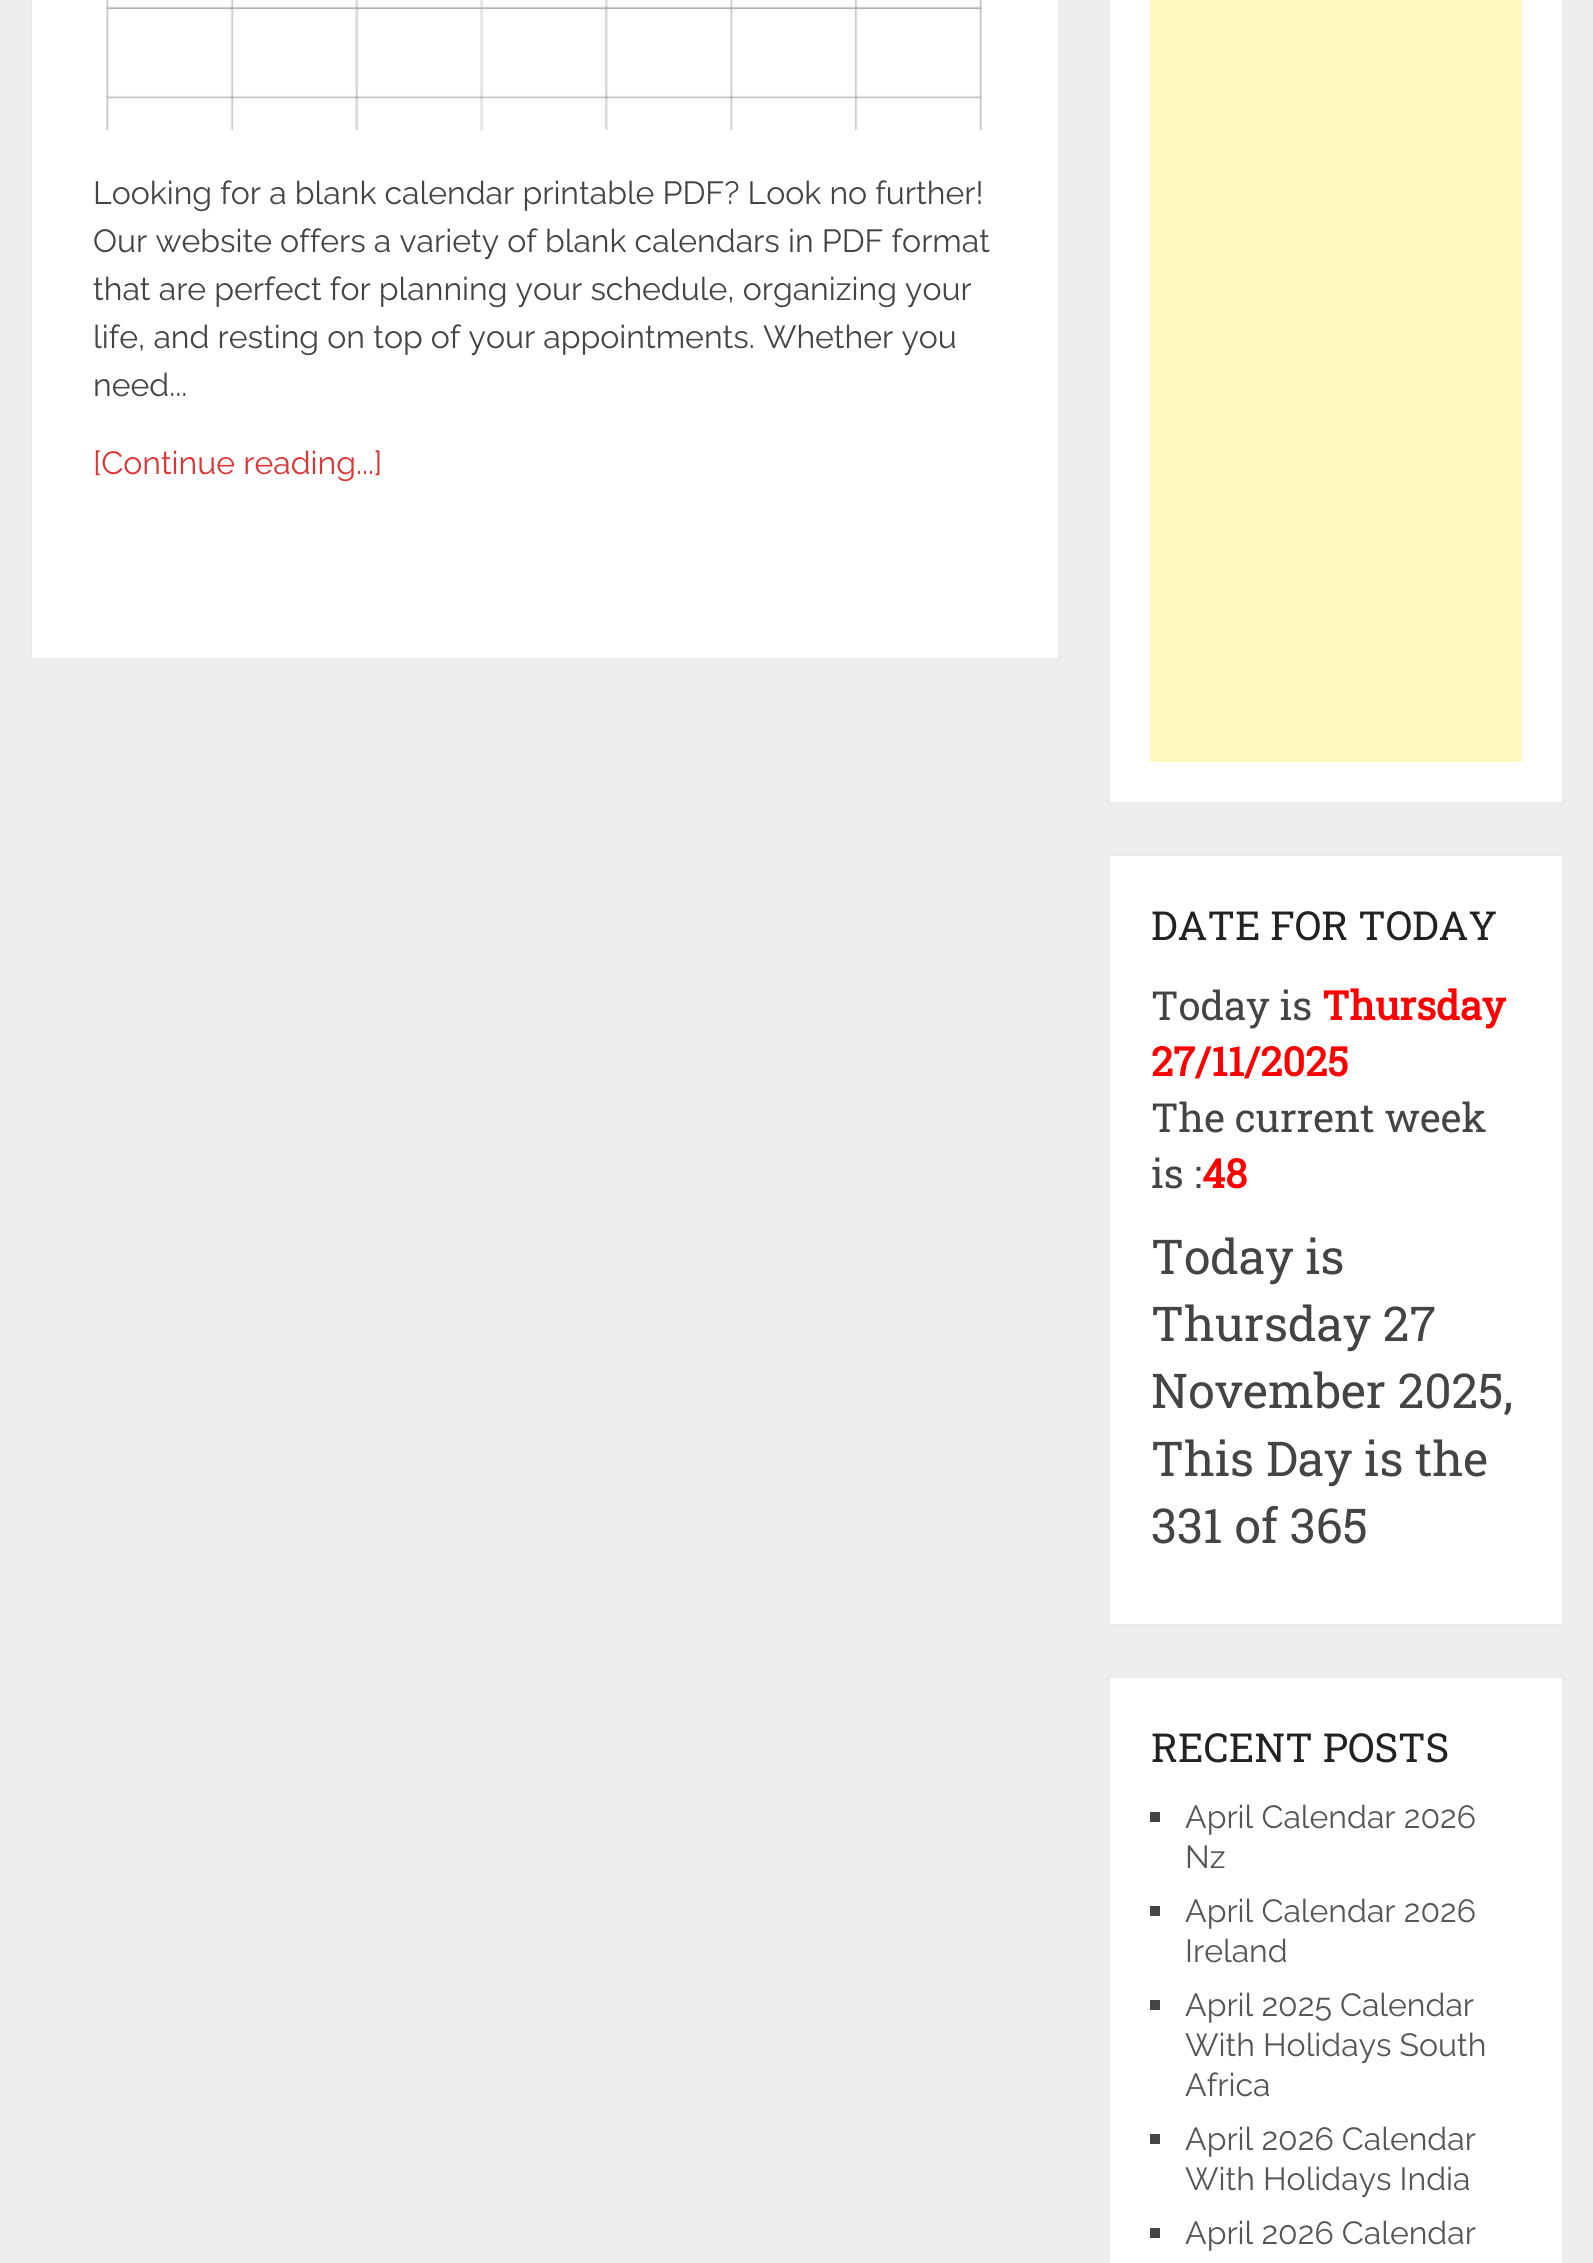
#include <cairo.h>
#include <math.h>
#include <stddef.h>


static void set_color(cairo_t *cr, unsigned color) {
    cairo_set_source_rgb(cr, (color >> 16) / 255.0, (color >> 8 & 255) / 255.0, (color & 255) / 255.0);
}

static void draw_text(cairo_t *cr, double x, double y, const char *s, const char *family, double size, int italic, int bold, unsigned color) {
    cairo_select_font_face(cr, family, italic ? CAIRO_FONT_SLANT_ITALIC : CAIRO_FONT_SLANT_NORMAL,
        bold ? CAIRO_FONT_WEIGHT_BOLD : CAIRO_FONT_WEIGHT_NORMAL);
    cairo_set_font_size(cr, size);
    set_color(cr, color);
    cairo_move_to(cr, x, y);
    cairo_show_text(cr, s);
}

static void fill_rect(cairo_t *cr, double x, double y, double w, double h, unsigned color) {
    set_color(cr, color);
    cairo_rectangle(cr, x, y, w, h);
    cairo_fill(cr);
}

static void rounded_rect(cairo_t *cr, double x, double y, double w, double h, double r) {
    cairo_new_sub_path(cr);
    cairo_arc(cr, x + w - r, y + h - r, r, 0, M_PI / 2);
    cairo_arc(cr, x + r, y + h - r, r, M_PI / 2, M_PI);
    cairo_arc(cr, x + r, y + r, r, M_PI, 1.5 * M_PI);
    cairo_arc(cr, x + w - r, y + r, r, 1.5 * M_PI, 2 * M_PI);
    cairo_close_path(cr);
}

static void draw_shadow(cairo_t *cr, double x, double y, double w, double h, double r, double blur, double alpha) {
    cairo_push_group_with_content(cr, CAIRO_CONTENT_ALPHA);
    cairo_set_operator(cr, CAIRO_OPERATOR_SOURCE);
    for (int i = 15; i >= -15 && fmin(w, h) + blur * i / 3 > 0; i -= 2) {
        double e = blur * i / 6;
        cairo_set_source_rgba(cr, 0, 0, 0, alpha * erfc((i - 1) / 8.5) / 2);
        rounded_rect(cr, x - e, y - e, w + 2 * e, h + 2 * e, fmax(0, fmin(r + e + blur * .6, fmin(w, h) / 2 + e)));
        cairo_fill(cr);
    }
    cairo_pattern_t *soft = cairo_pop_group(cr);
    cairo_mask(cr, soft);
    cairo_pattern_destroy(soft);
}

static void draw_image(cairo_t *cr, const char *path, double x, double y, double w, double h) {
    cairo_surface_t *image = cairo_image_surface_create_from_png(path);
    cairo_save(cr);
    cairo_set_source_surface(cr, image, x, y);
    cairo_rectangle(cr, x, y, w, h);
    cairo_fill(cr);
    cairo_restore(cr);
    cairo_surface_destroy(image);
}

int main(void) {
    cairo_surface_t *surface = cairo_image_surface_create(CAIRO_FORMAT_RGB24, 1593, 2263);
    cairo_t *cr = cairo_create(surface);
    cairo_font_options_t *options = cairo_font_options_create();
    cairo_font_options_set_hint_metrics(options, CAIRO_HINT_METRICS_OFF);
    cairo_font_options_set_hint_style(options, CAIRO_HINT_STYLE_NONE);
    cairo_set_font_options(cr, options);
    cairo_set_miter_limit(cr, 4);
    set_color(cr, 0xEEEEEE);
    cairo_paint(cr);
    set_color(cr, 0x323232);
    draw_shadow(cr, 32, -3, 1026, 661, 0, 1, 0.1);
    fill_rect(cr, 32, 0, 1026, 658, 0xFFFFFF);
    draw_image(cr, "assets/img1.png", 106, 0, 877, 130);
    draw_text(cr, 93, 204, "Looking for a blank calendar printable PDF? Look no further!", "Raleway", 32, 0, 0, 0x444444);
    draw_text(cr, 93, 252, "Our website offers a variety of blank calendars in PDF format", "Raleway", 32, 0, 0, 0x444444);
    draw_text(cr, 93, 300, "that are perfect for planning your schedule, organizing your", "Raleway", 32, 0, 0, 0x444444);
    draw_text(cr, 93, 348, "life, and resting on top of your appointments. Whether you", "Raleway", 32, 0, 0, 0x444444);
    draw_text(cr, 93, 396, "need...", "Raleway", 32, 0, 0, 0x444444);
    draw_text(cr, 93, 474, "[Continue reading...]", "Raleway", 32, 0, 0, 0xDD3333);
    set_color(cr, 0x323232);
    draw_shadow(cr, 1110, -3, 452, 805, 0, 1, 0.1);
    fill_rect(cr, 1110, 0, 452, 802, 0xFFFFFF);
    fill_rect(cr, 1150, 0, 372, 762, 0xFFF9C0);
    set_color(cr, 0x323232);
    draw_shadow(cr, 1110, 856, 452, 768, 0, 1, 0.1);
    fill_rect(cr, 1110, 856, 452, 768, 0xFFFFFF);
    draw_text(cr, 1151, 940, "DATE FOR TODAY", "Roboto Slab", 40, 0, 0, 0x222222);
    draw_text(cr, 1151, 1020, "Today is", "Roboto Slab", 40, 0, 0, 0x444444);
    draw_text(cr, 1322, 1020, "Thursday", "Roboto Slab", 40, 0, 1, 0xFF0000);
    draw_text(cr, 1151, 1076, "27/11/2025", "Roboto Slab", 40, 0, 1, 0xFF0000);
    draw_text(cr, 1151, 1132, "The current week", "Roboto Slab", 40, 0, 0, 0x444444);
    draw_text(cr, 1151, 1188, "is :", "Roboto Slab", 40, 0, 0, 0x444444);
    draw_text(cr, 1202, 1188, "48", "Roboto Slab", 40, 0, 1, 0xFF0000);
    draw_text(cr, 1151, 1274, "Today is", "Roboto Slab", 48, 0, 0, 0x444444);
    draw_text(cr, 1151, 1341, "Thursday 27", "Roboto Slab", 48, 0, 0, 0x444444);
    draw_text(cr, 1151, 1408, "November 2025,", "Roboto Slab", 48, 0, 0, 0x444444);
    draw_text(cr, 1151, 1476, "This Day is the", "Roboto Slab", 48, 0, 0, 0x444444);
    draw_text(cr, 1151, 1543, "331 of 365", "Roboto Slab", 48, 0, 0, 0x444444);
    set_color(cr, 0x323232);
    draw_shadow(cr, 1110, 1678, 452, 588, 0, 1, 0.1);
    fill_rect(cr, 1110, 1678, 452, 585, 0xFFFFFF);
    draw_text(cr, 1151, 1762, "RECENT POSTS", "Roboto Slab", 40, 0, 0, 0x222222);
    fill_rect(cr, 1150, 1812, 10, 10, 0x444444);
    draw_text(cr, 1185, 1828, "April Calendar 2026", "Raleway", 32, 0, 0, 0x555555);
    draw_text(cr, 1185, 1868, "Nz", "Raleway", 32, 0, 0, 0x555555);
    fill_rect(cr, 1150, 1906, 10, 10, 0x444444);
    draw_text(cr, 1185, 1922, "April Calendar 2026", "Raleway", 32, 0, 0, 0x555555);
    draw_text(cr, 1185, 1962, "Ireland", "Raleway", 32, 0, 0, 0x555555);
    fill_rect(cr, 1150, 2000, 10, 10, 0x444444);
    draw_text(cr, 1185, 2016, "April 2025 Calendar", "Raleway", 32, 0, 0, 0x555555);
    draw_text(cr, 1185, 2056, "With Holidays South", "Raleway", 32, 0, 0, 0x555555);
    draw_text(cr, 1185, 2096, "Africa", "Raleway", 32, 0, 0, 0x555555);
    fill_rect(cr, 1150, 2134, 10, 10, 0x444444);
    draw_text(cr, 1185, 2150, "April 2026 Calendar", "Raleway", 32, 0, 0, 0x555555);
    draw_text(cr, 1185, 2190, "With Holidays India", "Raleway", 32, 0, 0, 0x555555);
    fill_rect(cr, 1150, 2228, 10, 10, 0x444444);
    draw_text(cr, 1185, 2244, "April 2026 Calendar", "Raleway", 32, 0, 0, 0x555555);
    cairo_surface_write_to_png(surface, "output.png");
    cairo_font_options_destroy(options);
    cairo_destroy(cr);
    cairo_surface_destroy(surface);
    return 0;
}
